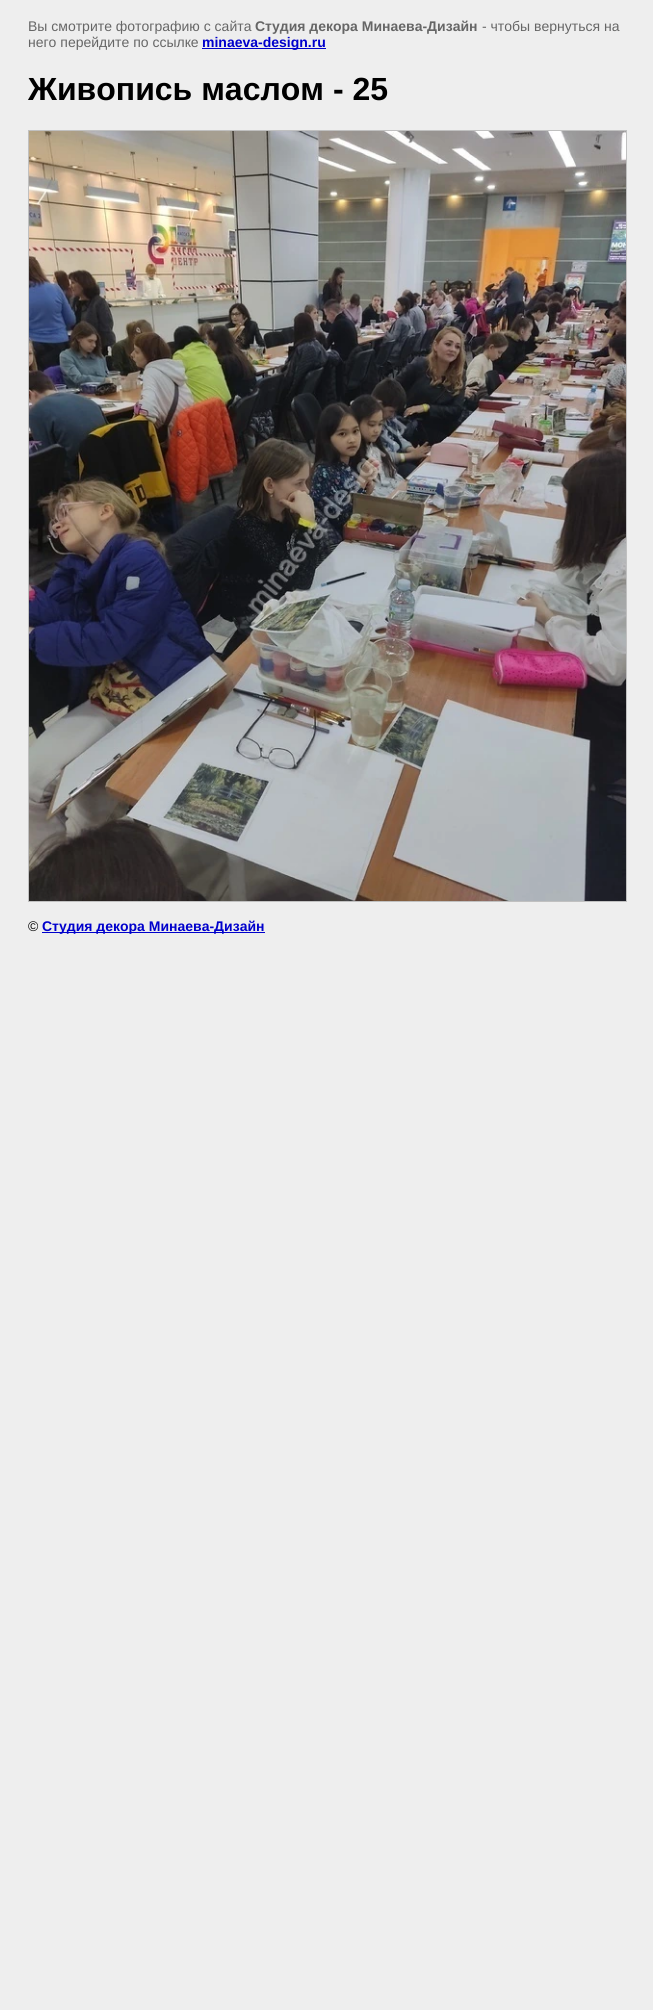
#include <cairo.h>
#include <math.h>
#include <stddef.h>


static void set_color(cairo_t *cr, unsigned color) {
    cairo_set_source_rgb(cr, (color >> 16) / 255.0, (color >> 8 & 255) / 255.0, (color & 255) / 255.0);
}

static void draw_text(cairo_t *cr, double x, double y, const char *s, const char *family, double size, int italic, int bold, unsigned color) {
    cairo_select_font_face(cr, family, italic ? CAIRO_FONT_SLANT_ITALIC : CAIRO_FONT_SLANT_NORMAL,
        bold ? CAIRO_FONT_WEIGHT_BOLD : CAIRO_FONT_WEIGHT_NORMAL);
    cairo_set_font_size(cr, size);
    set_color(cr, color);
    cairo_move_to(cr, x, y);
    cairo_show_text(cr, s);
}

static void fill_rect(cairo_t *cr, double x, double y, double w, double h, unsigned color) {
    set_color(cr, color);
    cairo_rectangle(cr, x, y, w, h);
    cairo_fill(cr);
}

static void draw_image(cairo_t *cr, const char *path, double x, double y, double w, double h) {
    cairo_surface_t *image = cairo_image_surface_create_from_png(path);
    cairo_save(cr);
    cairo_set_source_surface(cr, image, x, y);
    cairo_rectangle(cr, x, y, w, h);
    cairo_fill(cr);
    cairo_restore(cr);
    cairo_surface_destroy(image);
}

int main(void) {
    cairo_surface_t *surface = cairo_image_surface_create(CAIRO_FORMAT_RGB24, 653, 2010);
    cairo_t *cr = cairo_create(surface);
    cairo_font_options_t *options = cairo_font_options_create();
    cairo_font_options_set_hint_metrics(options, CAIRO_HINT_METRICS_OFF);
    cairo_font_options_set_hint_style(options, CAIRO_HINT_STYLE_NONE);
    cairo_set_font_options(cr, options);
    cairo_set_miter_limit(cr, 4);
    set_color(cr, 0xEEEEEE);
    cairo_paint(cr);
    draw_text(cr, 28, 31, "Вы смотрите фотографию с сайта", "Liberation Sans", 14, 0, 0, 0x666666);
    draw_text(cr, 255, 31, "Студия декора Минаева-Дизайн", "Liberation Sans", 14, 0, 1, 0x666666);
    draw_text(cr, 482, 31, "- чтобы вернуться на", "Liberation Sans", 14, 0, 0, 0x666666);
    draw_text(cr, 28, 47, "него перейдите по ссылке", "Liberation Sans", 14, 0, 0, 0x666666);
    fill_rect(cr, 202, 48, 124, 1, 0x0000CC);
    draw_text(cr, 202, 47, "minaeva-design.ru", "Liberation Sans", 14, 0, 1, 0x0000CC);
    draw_text(cr, 28, 100, "Живопись маслом - 25", "Liberation Sans", 32, 0, 1, 0x000000);
    cairo_rectangle(cr, 28.5, 130.5, 598, 771);
    set_color(cr, 0xC0C0C0);
    cairo_set_line_width(cr, 1);
    cairo_stroke(cr);
    draw_image(cr, "assets/img1.png", 29, 131, 597, 770);
    draw_text(cr, 28, 931, "©", "Liberation Sans", 14, 0, 0, 0x000000);
    fill_rect(cr, 42, 932, 223, 1, 0x0000CC);
    draw_text(cr, 42, 931, "Студия декора Минаева-Дизайн", "Liberation Sans", 14, 0, 1, 0x0000CC);
    cairo_surface_write_to_png(surface, "output.png");
    cairo_font_options_destroy(options);
    cairo_destroy(cr);
    cairo_surface_destroy(surface);
    return 0;
}
